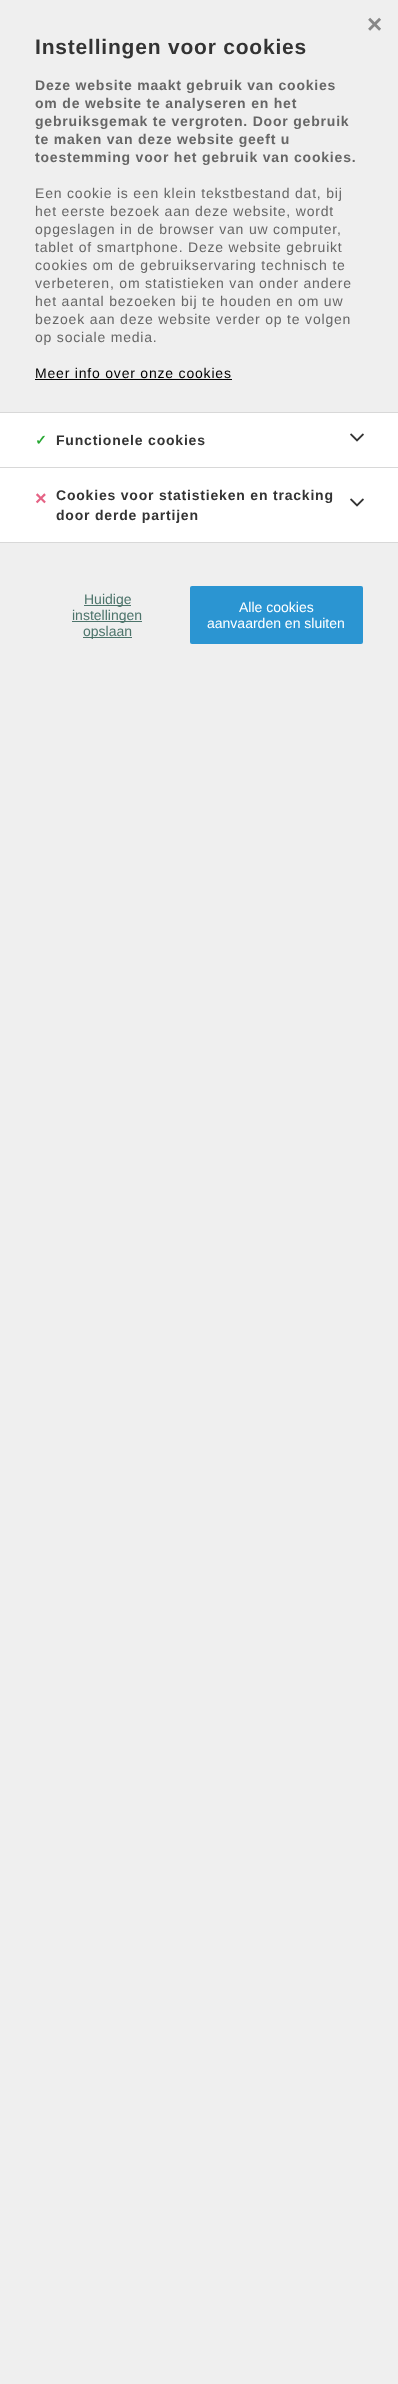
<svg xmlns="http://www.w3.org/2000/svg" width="398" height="2384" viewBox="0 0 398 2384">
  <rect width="100%" height="100%" fill="#efefef"/>
  <path d="M0 412h398v1H0z" fill="#d8d8d8"/>
  <path d="M35 379h197v1H35z" fill="#000"/>
  <path d="M0 413h398v129H0z" fill="#fff"/>
  <path d="M0 467h398v1H0z" fill="#d8d8d8"/>
  <image x="350" y="433" width="14" height="9" href="img/1.png"/>
  <path d="M0 542h398v1H0z" fill="#d8d8d8"/>
  <image x="350" y="498" width="14" height="9" href="img/1.png"/>
  <path d="M84 605h47v1H84z" fill="#4d746b"/>
  <path d="M72 621h70v1H72z" fill="#4d746b"/>
  <path d="M83 637h49v1H83z" fill="#4d746b"/>
  <rect x="190" y="586" width="173" height="58" rx="2" fill="#2b95d2"/>
  <text x="367" y="33" font-family="Liberation Sans" font-size="26" font-weight="bold" letter-spacing="0.8" fill="#888">×</text>
  <text x="35" y="54" font-family="Liberation Sans" font-size="21" font-weight="bold" letter-spacing="0.8" fill="#333">Instellingen voor cookies</text>
  <g font-family="Liberation Sans" font-size="14" font-weight="bold" letter-spacing="0.8" fill="#666">
    <text x="35" y="90">Deze website maakt gebruik van cookies</text>
    <text x="35" y="108">om de website te analyseren en het</text>
    <text x="35" y="126">gebruiksgemak te vergroten. Door gebruik</text>
    <text x="35" y="144">te maken van deze website geeft u</text>
    <text x="35" y="162">toestemming voor het gebruik van cookies.</text>
  </g>
  <g font-family="Liberation Sans" font-size="14" letter-spacing="0.8" fill="#666">
    <text x="35" y="198">Een cookie is een klein tekstbestand dat, bij</text>
    <text x="35" y="216">het eerste bezoek aan deze website, wordt</text>
    <text x="35" y="234">opgeslagen in de browser van uw computer,</text>
    <text x="35" y="252">tablet of smartphone. Deze website gebruikt</text>
    <text x="35" y="270">cookies om de gebruikservaring technisch te</text>
    <text x="35" y="288">verbeteren, om statistieken van onder andere</text>
    <text x="35" y="306">het aantal bezoeken bij te houden en om uw</text>
    <text x="35" y="324">bezoek aan deze website verder op te volgen</text>
    <text x="35" y="342">op sociale media.</text>
  </g>
  <text x="35" y="378" font-family="Liberation Sans" font-size="14" letter-spacing="0.8" fill="#000">Meer info over onze cookies</text>
  <text x="35" y="445" font-family="DejaVu Sans" font-size="14" font-weight="bold" letter-spacing="0.8" fill="#28a834">✓</text>
  <text x="56" y="445" font-family="Liberation Sans" font-size="14" font-weight="bold" letter-spacing="0.8" fill="#333">Functionele cookies</text>
  <text x="35" y="505" font-family="Liberation Sans" font-size="20" font-weight="bold" letter-spacing="0.8" fill="#e56385">×</text>
  <g font-family="Liberation Sans" font-size="14" font-weight="bold" letter-spacing="0.8" fill="#333">
    <text x="56" y="500">Cookies voor statistieken en tracking</text>
    <text x="56" y="520">door derde partijen</text>
  </g>
  <g font-family="Liberation Sans" font-size="14" fill="#4d746b">
    <text x="84" y="604">Huidige</text>
    <text x="72" y="620">instellingen</text>
    <text x="83" y="636">opslaan</text>
  </g>
  <g font-family="Liberation Sans" font-size="14" fill="#fff">
    <text x="239" y="612">Alle cookies</text>
    <text x="207" y="628">aanvaarden en sluiten</text>
  </g>
</svg>
